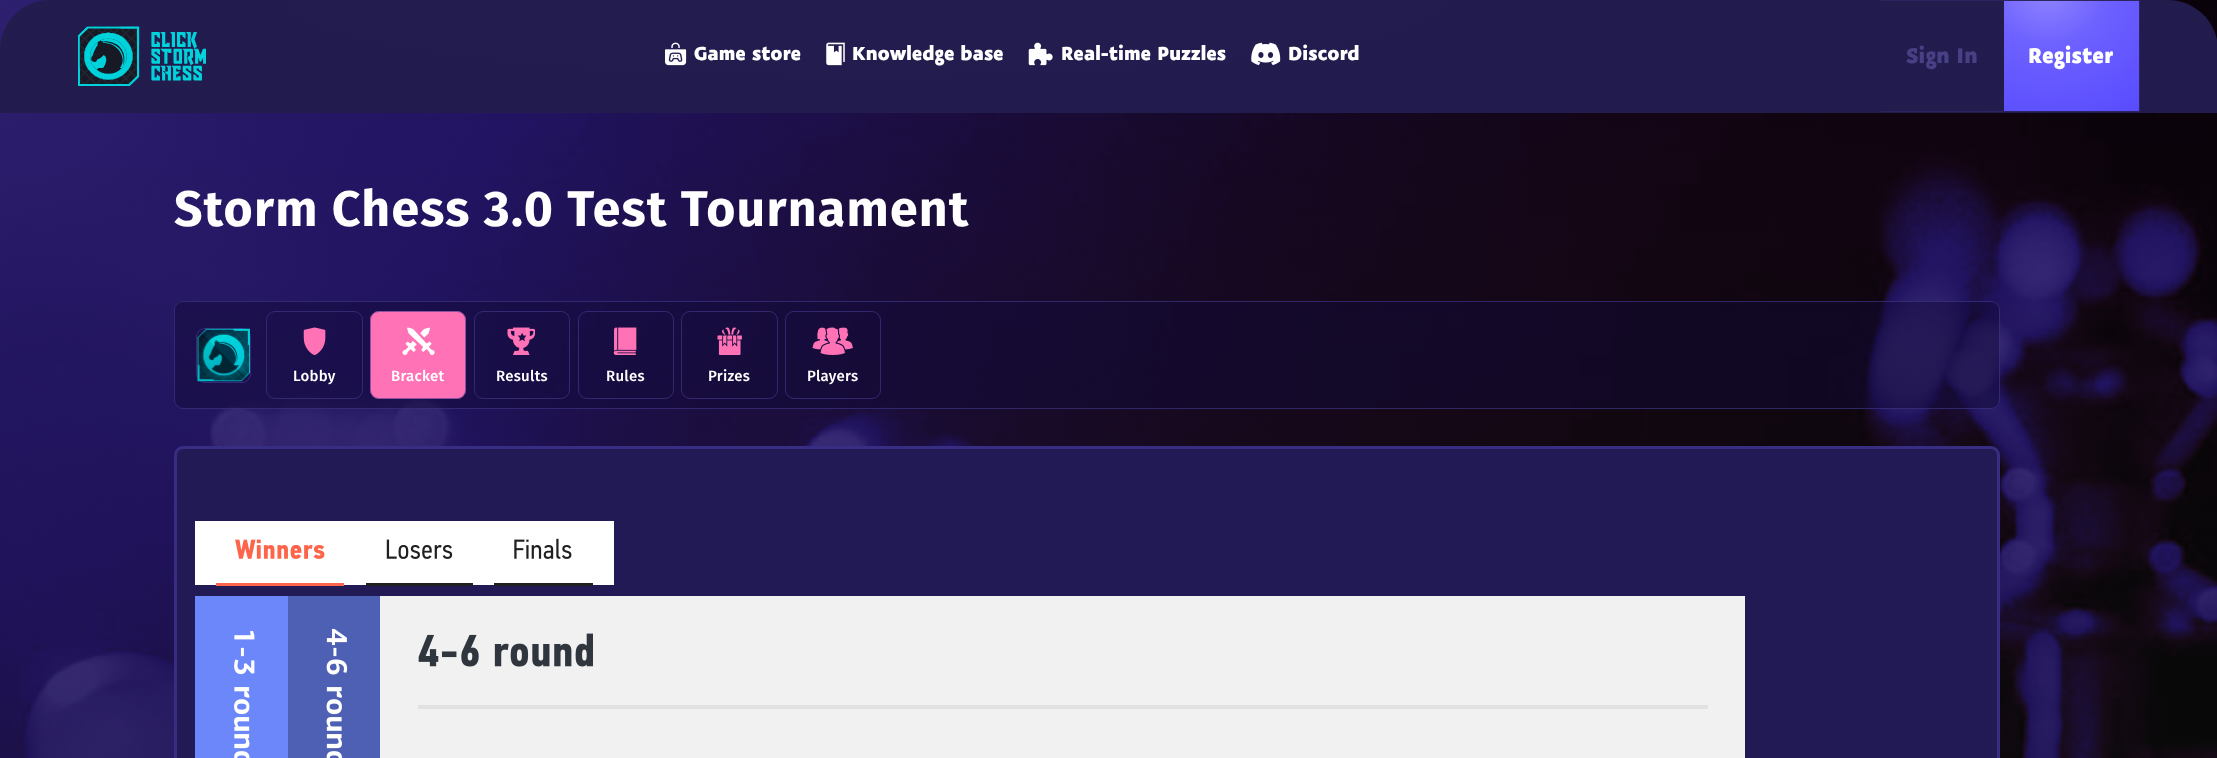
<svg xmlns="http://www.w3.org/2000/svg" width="2217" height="758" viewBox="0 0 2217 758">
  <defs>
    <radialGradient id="g1" gradientUnits="userSpaceOnUse" cx="0" cy="0" r="1" gradientTransform="matrix(7261 0 0 956 863 0)"><stop offset="0" stop-color="#231d4f"/><stop offset="1" stop-color="#1e1948"/></radialGradient>
    <radialGradient id="g2" gradientUnits="userSpaceOnUse" cx="0" cy="0" r="1" gradientTransform="matrix(179 0 0 171 2047 -12)"><stop offset="0" stop-color="#9186ff"/><stop offset="0.34" stop-color="#6d61ff"/><stop offset="0.92" stop-color="#574aff"/></radialGradient>
  </defs>
  <rect width="100%" height="100%" fill="#fff"/>
  <image x="0" y="0" width="2217" height="758" href="img/1.png"/>
  <path d="M50 0H2168C2195.5 0 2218 22.5 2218 50V113H0V50C0 22.5 22.5 0 50 0Z" fill="url(#g1)"/>
  <image x="78" y="26" width="128" height="60" href="img/2.png"/>
  <image x="665" y="42" width="22" height="24" href="img/3.png"/>
  <image x="826" y="42" width="19" height="24" href="img/4.png"/>
  <image x="1028" y="42" width="25" height="24" href="img/5.png"/>
  <image x="1251" y="42" width="30" height="24" href="img/6.png"/>
  <path d="M1881 0H2140L2139 1H1881Z" fill="#2d2562"/>
  <path d="M2140 0V112L2139 111V1Z" fill="#453b914d"/>
  <path d="M2140 112H1881V111H2139Z" fill="#453b914d"/>
  <path d="M2004 1h135v110H2004z" fill="url(#g2)"/>
  <rect x="174" y="301" width="1826" height="108" rx="9" fill="#120a3780"/>
  <rect x="174.5" y="301.5" width="1825" height="107" rx="8.5" fill="none" stroke="#453b9199"/>
  <rect x="196.5" y="328.5" width="54" height="54" rx="8.5" fill="none" stroke="#342a76"/>
  <image x="197" y="328" width="53" height="54" href="img/7.png"/>
  <rect x="266.5" y="311.5" width="96" height="87" rx="8.5" fill="none" stroke="#453b9199"/>
  <image x="303" y="327" width="23" height="28" href="img/8.png"/>
  <rect x="370" y="311" width="96" height="88" rx="9" fill="#ff72b6"/>
  <rect x="370.5" y="311.5" width="95" height="87" rx="8.5" fill="none" stroke="#453b9199"/>
  <image x="402" y="327" width="33" height="28" href="img/9.png"/>
  <rect x="474.5" y="311.5" width="95" height="87" rx="8.5" fill="none" stroke="#453b9199"/>
  <image x="507" y="327" width="28" height="28" href="img/10.png"/>
  <rect x="578.5" y="311.5" width="95" height="87" rx="8.5" fill="none" stroke="#453b9199"/>
  <image x="613" y="327" width="24" height="28" href="img/11.png"/>
  <rect x="681.5" y="311.5" width="96" height="87" rx="8.5" fill="none" stroke="#453b9199"/>
  <image x="717" y="327" width="25" height="28" href="img/12.png"/>
  <rect x="785.5" y="311.5" width="95" height="87" rx="8.5" fill="none" stroke="#453b9199"/>
  <image x="812" y="327" width="41" height="28" href="img/13.png"/>
  <rect x="175.5" y="447.5" width="1823" height="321" rx="7.5" fill="#211a54" stroke="#372d82" stroke-width="3"/>
  <path d="M195 521h419v64H195z" fill="#fff"/>
  <path d="M216 583h128v3H216z" fill="#fd6449"/>
  <image x="235" y="539" width="90" height="20" href="img/14.png"/>
  <path d="M366 583h107v3H366z" fill="#202020"/>
  <image x="386" y="539" width="67" height="20" href="img/15.png"/>
  <path d="M494 583h99v3H494z" fill="#202020"/>
  <image x="514" y="538" width="58" height="21" href="img/16.png"/>
  <path d="M195 596h93v162H195z" fill="#6c87f9"/>
  <image x="234" y="631" width="21" height="127" href="img/17.png"/>
  <path d="M288 596h92v162H288z" fill="#4d60b4"/>
  <image x="326" y="628" width="22" height="130" href="img/18.png"/>
  <path d="M380 596h1365v162H380z" fill="#f1f1f1"/>
  <path d="M418 705h1290v4H418z" fill="#e1e1e1"/>
  <image x="418" y="633" width="175" height="34" href="img/19.png"/>
  <g font-family="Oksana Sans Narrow" font-size="20" font-weight="900" letter-spacing="0.25" fill="#fff">
    <text x="694" y="60">Game store</text>
    <text x="852" y="60">Knowledge base</text>
    <text x="1061" y="60">Real-time Puzzles</text>
    <text x="1288" y="60">Discord</text>
  </g>
  <text x="1906" y="63" font-family="Oksana Sans Narrow" font-size="22.5" font-weight="900" letter-spacing="0.25" fill="#484085">Sign In</text>
  <text x="2028" y="63" font-family="Oksana Sans Narrow" font-size="22.5" font-weight="900" letter-spacing="0.25" fill="#fff">Register</text>
  <text x="174" y="226" font-family="Fira Sans" font-size="50" font-weight="bold" letter-spacing="1.25" fill="#fff">Storm Chess 3.0 Test Tournament</text>
  <g font-family="Fira Sans" font-size="15" font-weight="500" letter-spacing="0.25" fill="#fff">
    <text x="293" y="381">Lobby</text>
    <text x="391" y="381">Bracket</text>
    <text x="496" y="381">Results</text>
    <text x="606" y="381">Rules</text>
    <text x="708" y="381">Prizes</text>
    <text x="807" y="381">Players</text>
  </g>
</svg>
